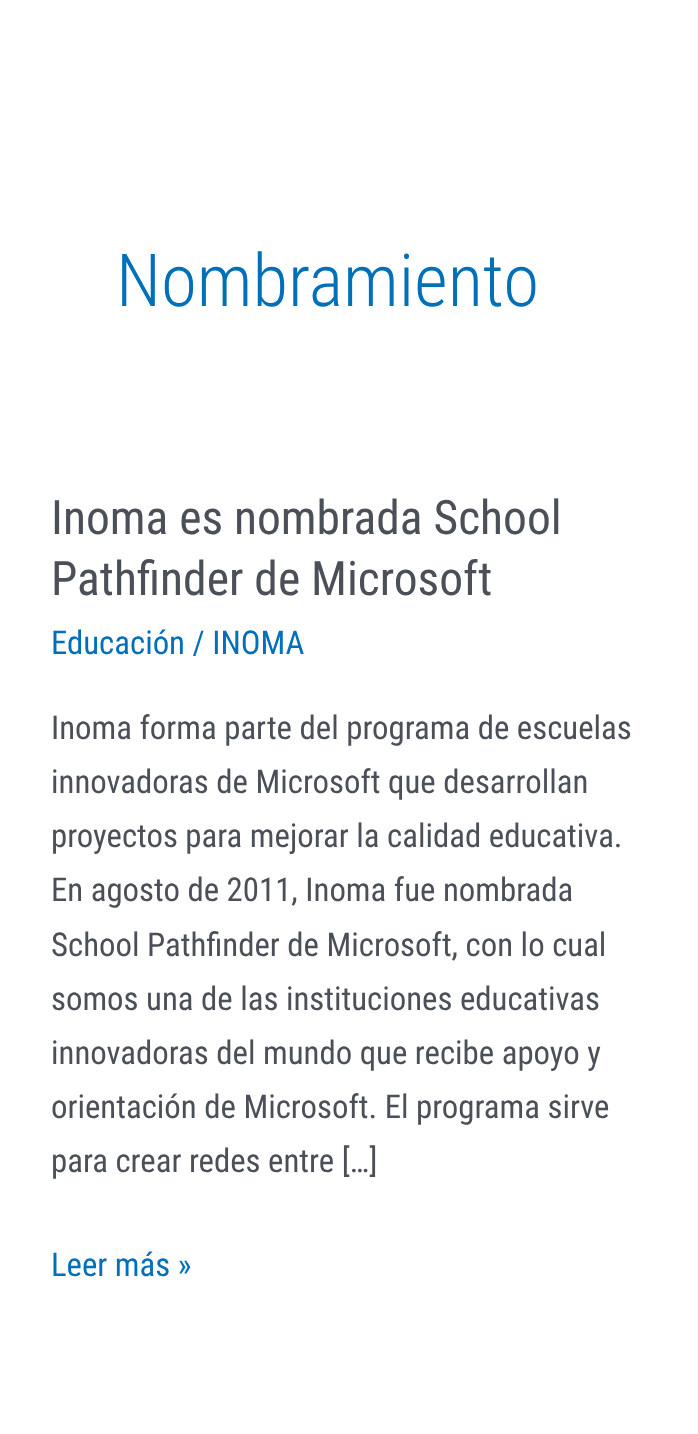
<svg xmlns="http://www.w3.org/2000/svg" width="698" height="1434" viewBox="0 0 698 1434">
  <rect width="100%" height="100%" fill="#fff"/>
  <text x="116" y="306" font-family="Roboto Condensed" font-size="73" font-weight="300" fill="#0170b9">Nombramiento</text>
  <g font-family="Roboto Condensed" font-size="47.5" fill="#4b4f58">
    <text x="51" y="534">Inoma es nombrada School</text>
    <text x="51" y="595">Pathfinder de Microsoft</text>
  </g>
  <text x="51" y="654" font-family="Roboto Condensed" font-size="32.8" fill="#0170b9">Educación / INOMA</text>
  <g font-family="Roboto Condensed" font-size="32.8" fill="#4b4f58">
    <text x="51" y="739">Inoma forma parte del programa de escuelas</text>
    <text x="51" y="793">innovadoras de Microsoft que desarrollan</text>
    <text x="51" y="847">proyectos para mejorar la calidad educativa.</text>
    <text x="51" y="901">En agosto de 2011, Inoma fue nombrada</text>
    <text x="51" y="956">School Pathfinder de Microsoft, con lo cual</text>
    <text x="51" y="1010">somos una de las instituciones educativas</text>
    <text x="51" y="1064">innovadoras del mundo que recibe apoyo y</text>
    <text x="51" y="1118">orientación de Microsoft. El programa sirve</text>
    <text x="51" y="1172">para crear redes entre […]</text>
  </g>
  <text x="51" y="1276" font-family="Roboto Condensed" font-size="32.8" fill="#0170b9">Leer más »</text>
</svg>
